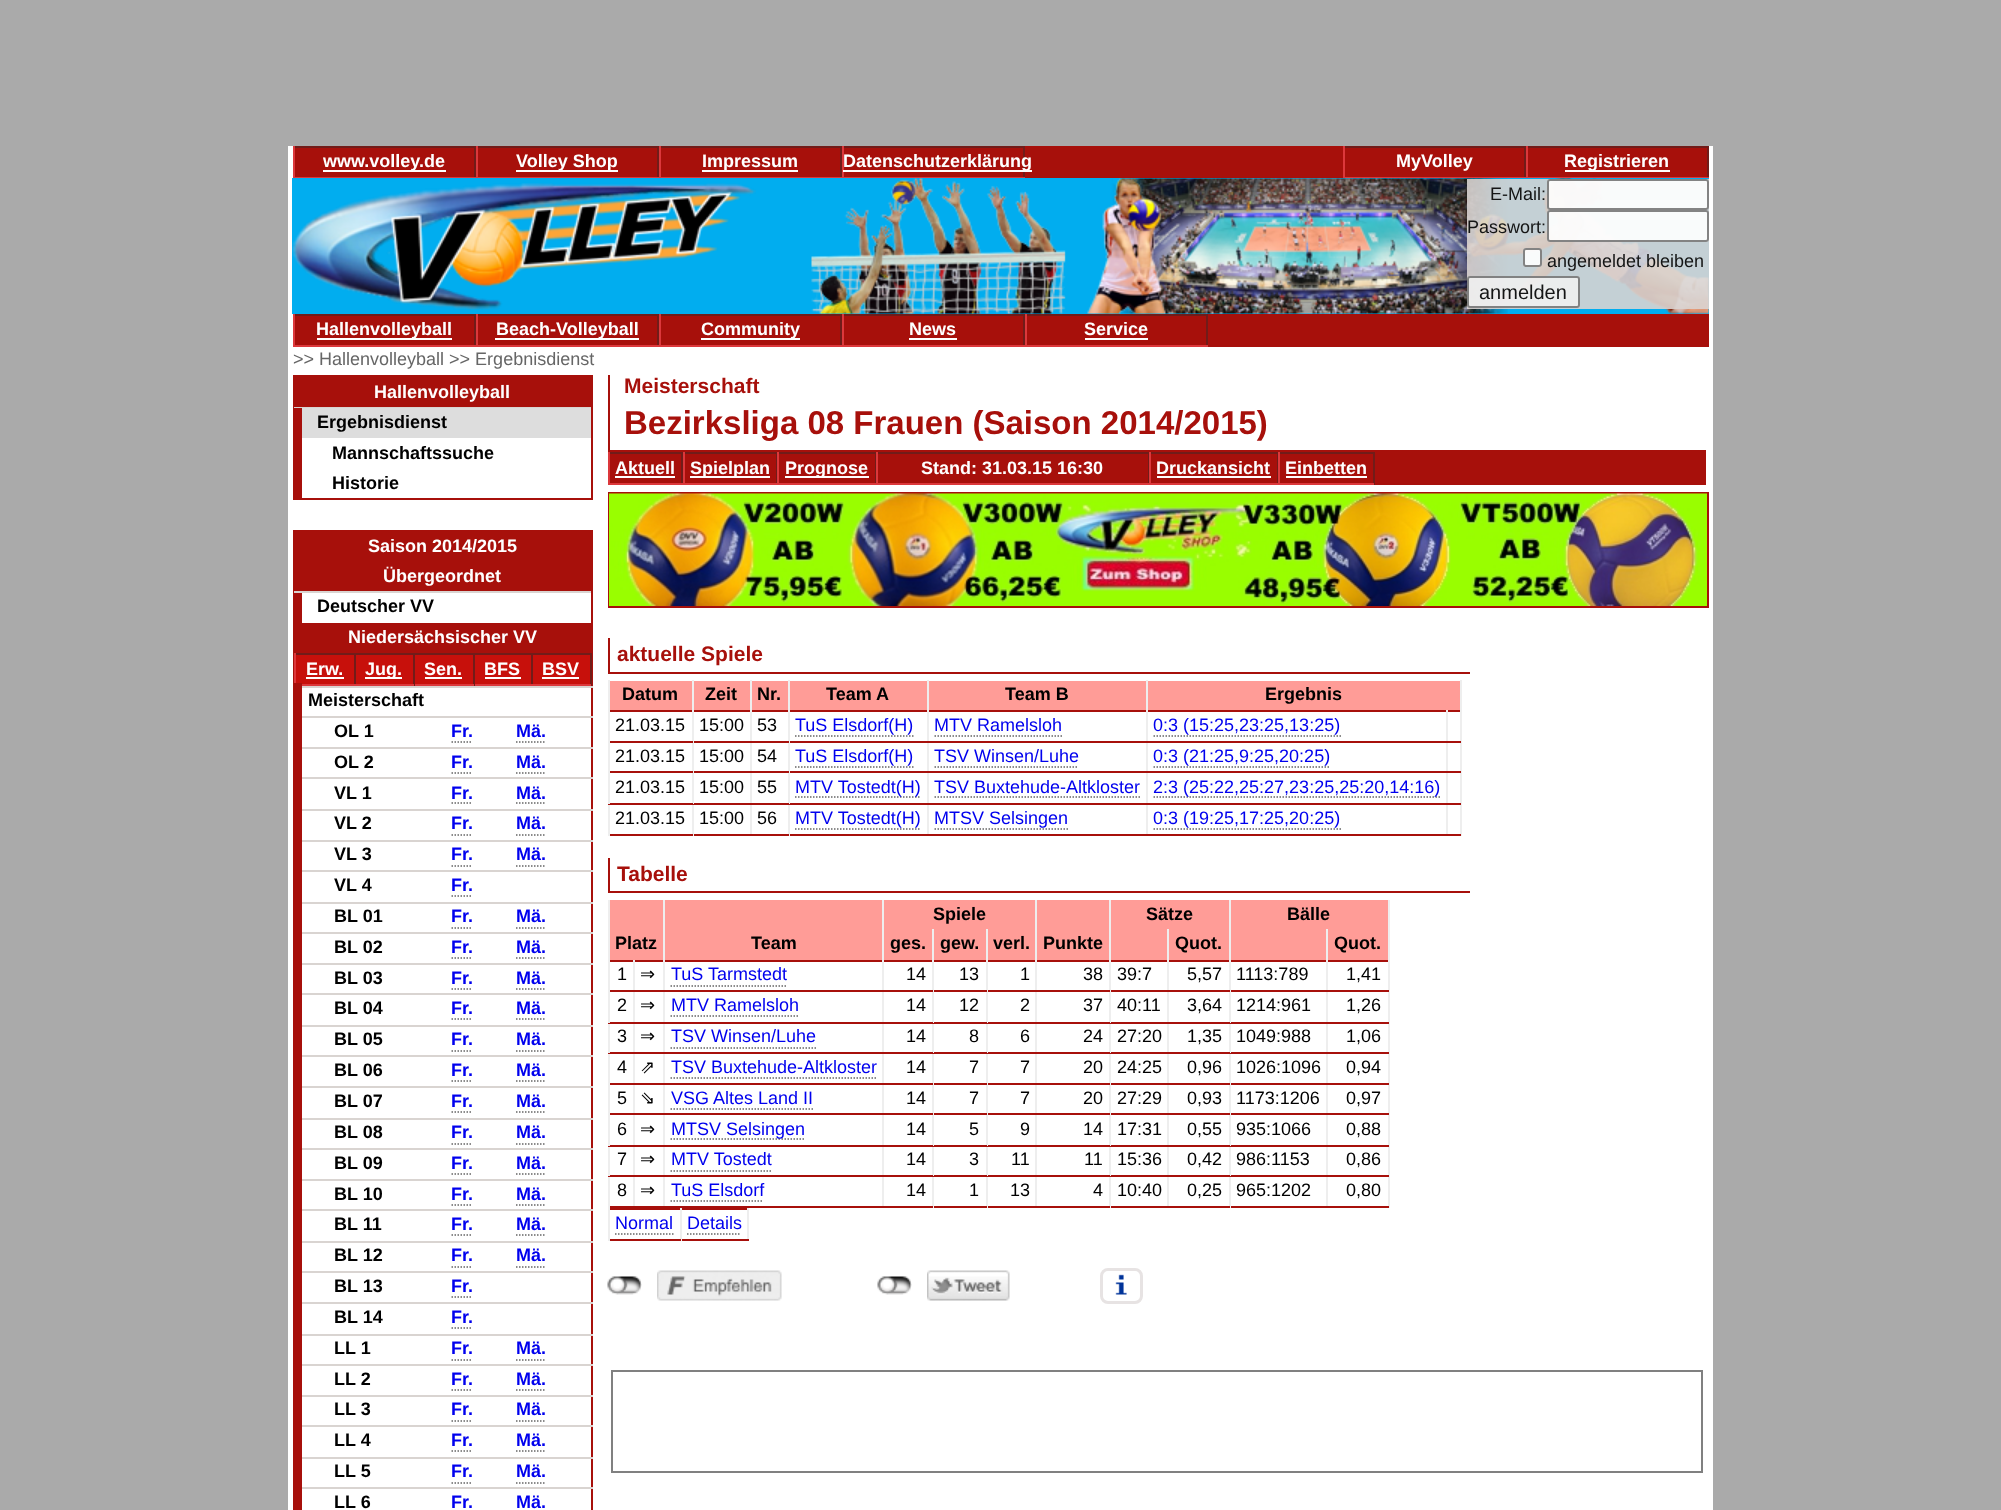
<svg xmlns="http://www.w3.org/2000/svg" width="2001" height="1510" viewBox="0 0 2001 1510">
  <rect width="100%" height="100%" fill="#aaa"/>
  <path d="M288 146h1425v1364H288z" fill="#fff"/>
  <path d="M295 146h1412v32H295z" fill="#a7100b"/>
  <path d="M293 146h732v2H293z" fill="#711c19"/>
  <path d="M474 146h2v33H474z" fill="#711c19"/>
  <path d="M293 177h183v1H293z" fill="#dc383b"/>
  <path d="M293 146h2v33H293z" fill="#dc383b"/>
  <path d="M323 170h123v2H323z" fill="#fff"/>
  <path d="M657 146h2v33H657z" fill="#711c19"/>
  <path d="M476 177h183v1H476z" fill="#dc383b"/>
  <path d="M476 146h2v33H476z" fill="#dc383b"/>
  <path d="M516 170h102v2H516z" fill="#fff"/>
  <path d="M840 146h2v33H840z" fill="#711c19"/>
  <path d="M659 177h183v1H659z" fill="#dc383b"/>
  <path d="M659 146h2v33H659z" fill="#dc383b"/>
  <path d="M702 170h96v2H702z" fill="#fff"/>
  <path d="M1023 146h2v33H1023z" fill="#711c19"/>
  <path d="M842 177h183v1H842z" fill="#dc383b"/>
  <path d="M842 146h2v33H842z" fill="#dc383b"/>
  <path d="M843 170h189v2H843z" fill="#fff"/>
  <path d="M1343 146h366v2H1343z" fill="#711c19"/>
  <path d="M1524 146h2v33H1524z" fill="#711c19"/>
  <path d="M1343 177h183v1H1343z" fill="#dc383b"/>
  <path d="M1343 146h2v33H1343z" fill="#dc383b"/>
  <path d="M1707 146h2v33H1707z" fill="#711c19"/>
  <path d="M1526 177h183v1H1526z" fill="#dc383b"/>
  <path d="M1526 146h2v33H1526z" fill="#dc383b"/>
  <path d="M1565 170h105v2H1565z" fill="#fff"/>
  <path d="M292 178h1417v136H292z" fill="#01adef"/>
  <image x="292" y="183" width="464" height="127" href="img/1.png"/>
  <image x="811" y="178" width="898" height="136" href="img/2.png"/>
  <path d="M1467 179h242v130H1467z" fill="#d9d4d1e6"/>
  <rect x="1547" y="179" width="162" height="31" rx="3" fill="#ffffffe6"/>
  <rect x="1548" y="180" width="160" height="29" rx="2" fill="none" stroke="#767676e6" stroke-width="2"/>
  <rect x="1547" y="210" width="162" height="32" rx="3" fill="#ffffffe6"/>
  <rect x="1548" y="211" width="160" height="30" rx="2" fill="none" stroke="#767676e6" stroke-width="2"/>
  <rect x="1523" y="248" width="19" height="19" rx="3" fill="#ffffffe6"/>
  <rect x="1524" y="249" width="17" height="17" rx="2" fill="none" stroke="#767676e6" stroke-width="2"/>
  <rect x="1467" y="276" width="113" height="32" rx="3" fill="#efefefe6"/>
  <rect x="1468" y="277" width="111" height="30" rx="2" fill="none" stroke="#767676e6" stroke-width="2"/>
  <path d="M295 314h1414v33H295z" fill="#a7100b"/>
  <path d="M293 314h915v2H293z" fill="#711c19"/>
  <path d="M474 314h2v33H474z" fill="#711c19"/>
  <path d="M293 345h183v2H293z" fill="#dc383b"/>
  <path d="M293 314h2v33H293z" fill="#dc383b"/>
  <path d="M317 338h135v2H317z" fill="#fff"/>
  <path d="M657 314h2v33H657z" fill="#711c19"/>
  <path d="M476 345h183v2H476z" fill="#dc383b"/>
  <path d="M476 314h2v33H476z" fill="#dc383b"/>
  <path d="M495 338h144v2H495z" fill="#fff"/>
  <path d="M840 314h2v33H840z" fill="#711c19"/>
  <path d="M659 345h183v2H659z" fill="#dc383b"/>
  <path d="M659 314h2v33H659z" fill="#dc383b"/>
  <path d="M701 338h99v2H701z" fill="#fff"/>
  <path d="M1023 314h2v33H1023z" fill="#711c19"/>
  <path d="M842 345h183v2H842z" fill="#dc383b"/>
  <path d="M842 314h2v33H842z" fill="#dc383b"/>
  <path d="M909 338h48v2H909z" fill="#fff"/>
  <path d="M1206 314h2v33H1206z" fill="#711c19"/>
  <path d="M1025 345h183v2H1025z" fill="#dc383b"/>
  <path d="M1025 314h2v33H1025z" fill="#dc383b"/>
  <path d="M1085 338h63v2H1085z" fill="#fff"/>
  <path d="M294 376h298v123H294z" fill="none" stroke="#a7100b" stroke-width="2"/>
  <path d="M295 377h296v30H295z" fill="#a7100b"/>
  <path d="M294 407h297v1H294z" fill="#d9d4d1"/>
  <path d="M302 408h289v30H302z" fill="#ddd"/>
  <path d="M295 408h7v90H295z" fill="#a7100b"/>
  <path d="M294 531h298v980H294z" fill="none" stroke="#a7100b" stroke-width="2"/>
  <path d="M295 532h296v59H295z" fill="#a7100b"/>
  <path d="M294 591h297v2H294z" fill="#d9d4d1"/>
  <path d="M295 593h7v30H295z" fill="#a7100b"/>
  <path d="M295 623h296v30H295z" fill="#a7100b"/>
  <path d="M296 655h58v29H296z" fill="#c7100b"/>
  <path d="M294 653h297v2H294z" fill="#711c19"/>
  <path d="M590 653h2v33H590z" fill="#711c19"/>
  <path d="M531 684h60v2H531z" fill="#dc383b"/>
  <path d="M531 653h2v33H531z" fill="#711c19"/>
  <path d="M473 684h60v2H473z" fill="#dc383b"/>
  <path d="M473 653h2v33H473z" fill="#711c19"/>
  <path d="M413 684h61v2H413z" fill="#dc383b"/>
  <path d="M413 653h2v33H413z" fill="#711c19"/>
  <path d="M354 684h60v2H354z" fill="#dc383b"/>
  <path d="M354 653h2v33H354z" fill="#711c19"/>
  <path d="M294 684h62v2H294z" fill="#dc383b"/>
  <path d="M294 653h2v33H294z" fill="#dc383b"/>
  <path d="M306 677h38v2H306z" fill="#fff"/>
  <path d="M356 655h57v29H356z" fill="#c7100b"/>
  <path d="M365 677h37v2H365z" fill="#fff"/>
  <path d="M415 655h58v29H415z" fill="#c7100b"/>
  <path d="M425 677h37v2H425z" fill="#fff"/>
  <path d="M475 655h56v29H475z" fill="#c7100b"/>
  <path d="M485 677h36v2H485z" fill="#fff"/>
  <path d="M533 655h57v29H533z" fill="#c7100b"/>
  <path d="M542 677h37v2H542z" fill="#fff"/>
  <path d="M297 686h296v2H297z" fill="#d9d4d1"/>
  <path d="M297 716h296v2H297z" fill="#d9d4d1"/>
  <path d="M297 747h296v2H297z" fill="#d9d4d1"/>
  <path d="M297 777h296v2H297z" fill="#d9d4d1"/>
  <path d="M297 809h296v2H297z" fill="#d9d4d1"/>
  <path d="M297 840h296v2H297z" fill="#d9d4d1"/>
  <path d="M297 870h296v2H297z" fill="#d9d4d1"/>
  <path d="M297 902h296v2H297z" fill="#d9d4d1"/>
  <path d="M297 932h296v2H297z" fill="#d9d4d1"/>
  <path d="M297 963h296v2H297z" fill="#d9d4d1"/>
  <path d="M297 993h296v2H297z" fill="#d9d4d1"/>
  <path d="M297 1025h296v2H297z" fill="#d9d4d1"/>
  <path d="M297 1055h296v2H297z" fill="#d9d4d1"/>
  <path d="M297 1086h296v2H297z" fill="#d9d4d1"/>
  <path d="M297 1118h296v2H297z" fill="#d9d4d1"/>
  <path d="M297 1148h296v2H297z" fill="#d9d4d1"/>
  <path d="M297 1179h296v2H297z" fill="#d9d4d1"/>
  <path d="M297 1209h296v2H297z" fill="#d9d4d1"/>
  <path d="M297 1241h296v2H297z" fill="#d9d4d1"/>
  <path d="M297 1271h296v2H297z" fill="#d9d4d1"/>
  <path d="M297 1302h296v2H297z" fill="#d9d4d1"/>
  <path d="M297 1334h296v2H297z" fill="#d9d4d1"/>
  <path d="M297 1364h296v2H297z" fill="#d9d4d1"/>
  <path d="M297 1395h296v2H297z" fill="#d9d4d1"/>
  <path d="M297 1425h296v2H297z" fill="#d9d4d1"/>
  <path d="M297 1457h296v2H297z" fill="#d9d4d1"/>
  <path d="M297 1487h296v2H297z" fill="#d9d4d1"/>
  <path d="M295 713h7v797H295z" fill="#a7100b"/>
  <path d="M294 683h8v37H294z" fill="#a7100b"/>
  <path d="M451.5 742H472.5" fill="none" stroke="#666" stroke-width="1.5" stroke-dasharray="1.5 1.5"/>
  <path d="M516 742H546" fill="none" stroke="#666" stroke-width="1.5" stroke-dasharray="1.5 1.5"/>
  <path d="M451.5 773H472.5" fill="none" stroke="#666" stroke-width="1.5" stroke-dasharray="1.5 1.5"/>
  <path d="M516 773H546" fill="none" stroke="#666" stroke-width="1.5" stroke-dasharray="1.5 1.5"/>
  <path d="M451.5 803H472.5" fill="none" stroke="#666" stroke-width="1.5" stroke-dasharray="1.5 1.5"/>
  <path d="M516 803H546" fill="none" stroke="#666" stroke-width="1.5" stroke-dasharray="1.5 1.5"/>
  <path d="M451.5 835H472.5" fill="none" stroke="#666" stroke-width="1.5" stroke-dasharray="1.5 1.5"/>
  <path d="M516 835H546" fill="none" stroke="#666" stroke-width="1.5" stroke-dasharray="1.5 1.5"/>
  <path d="M451.5 866H472.5" fill="none" stroke="#666" stroke-width="1.5" stroke-dasharray="1.5 1.5"/>
  <path d="M516 866H546" fill="none" stroke="#666" stroke-width="1.5" stroke-dasharray="1.5 1.5"/>
  <path d="M451.5 896H472.5" fill="none" stroke="#666" stroke-width="1.5" stroke-dasharray="1.5 1.5"/>
  <path d="M451.5 928H472.5" fill="none" stroke="#666" stroke-width="1.5" stroke-dasharray="1.5 1.5"/>
  <path d="M516 928H546" fill="none" stroke="#666" stroke-width="1.5" stroke-dasharray="1.5 1.5"/>
  <path d="M451.5 958H472.5" fill="none" stroke="#666" stroke-width="1.5" stroke-dasharray="1.5 1.5"/>
  <path d="M516 958H546" fill="none" stroke="#666" stroke-width="1.5" stroke-dasharray="1.5 1.5"/>
  <path d="M451.5 989H472.5" fill="none" stroke="#666" stroke-width="1.5" stroke-dasharray="1.5 1.5"/>
  <path d="M516 989H546" fill="none" stroke="#666" stroke-width="1.5" stroke-dasharray="1.5 1.5"/>
  <path d="M451.5 1019H472.5" fill="none" stroke="#666" stroke-width="1.5" stroke-dasharray="1.5 1.5"/>
  <path d="M516 1019H546" fill="none" stroke="#666" stroke-width="1.5" stroke-dasharray="1.5 1.5"/>
  <path d="M451.5 1051H472.5" fill="none" stroke="#666" stroke-width="1.5" stroke-dasharray="1.5 1.5"/>
  <path d="M516 1051H546" fill="none" stroke="#666" stroke-width="1.5" stroke-dasharray="1.5 1.5"/>
  <path d="M451.5 1081H472.5" fill="none" stroke="#666" stroke-width="1.5" stroke-dasharray="1.5 1.5"/>
  <path d="M516 1081H546" fill="none" stroke="#666" stroke-width="1.5" stroke-dasharray="1.5 1.5"/>
  <path d="M451.5 1112H472.5" fill="none" stroke="#666" stroke-width="1.5" stroke-dasharray="1.5 1.5"/>
  <path d="M516 1112H546" fill="none" stroke="#666" stroke-width="1.5" stroke-dasharray="1.5 1.5"/>
  <path d="M451.5 1144H472.5" fill="none" stroke="#666" stroke-width="1.5" stroke-dasharray="1.5 1.5"/>
  <path d="M516 1144H546" fill="none" stroke="#666" stroke-width="1.5" stroke-dasharray="1.5 1.5"/>
  <path d="M451.5 1174H472.5" fill="none" stroke="#666" stroke-width="1.5" stroke-dasharray="1.5 1.5"/>
  <path d="M516 1174H546" fill="none" stroke="#666" stroke-width="1.5" stroke-dasharray="1.5 1.5"/>
  <path d="M451.5 1205H472.5" fill="none" stroke="#666" stroke-width="1.5" stroke-dasharray="1.5 1.5"/>
  <path d="M516 1205H546" fill="none" stroke="#666" stroke-width="1.5" stroke-dasharray="1.5 1.5"/>
  <path d="M451.5 1235H472.5" fill="none" stroke="#666" stroke-width="1.5" stroke-dasharray="1.5 1.5"/>
  <path d="M516 1235H546" fill="none" stroke="#666" stroke-width="1.5" stroke-dasharray="1.5 1.5"/>
  <path d="M451.5 1267H472.5" fill="none" stroke="#666" stroke-width="1.5" stroke-dasharray="1.5 1.5"/>
  <path d="M516 1267H546" fill="none" stroke="#666" stroke-width="1.5" stroke-dasharray="1.5 1.5"/>
  <path d="M451.5 1297H472.5" fill="none" stroke="#666" stroke-width="1.5" stroke-dasharray="1.5 1.5"/>
  <path d="M451.5 1328H472.5" fill="none" stroke="#666" stroke-width="1.5" stroke-dasharray="1.5 1.5"/>
  <path d="M451.5 1360H472.5" fill="none" stroke="#666" stroke-width="1.5" stroke-dasharray="1.5 1.5"/>
  <path d="M516 1360H546" fill="none" stroke="#666" stroke-width="1.5" stroke-dasharray="1.5 1.5"/>
  <path d="M451.5 1390H472.5" fill="none" stroke="#666" stroke-width="1.5" stroke-dasharray="1.5 1.5"/>
  <path d="M516 1390H546" fill="none" stroke="#666" stroke-width="1.5" stroke-dasharray="1.5 1.5"/>
  <path d="M451.5 1421H472.5" fill="none" stroke="#666" stroke-width="1.5" stroke-dasharray="1.5 1.5"/>
  <path d="M516 1421H546" fill="none" stroke="#666" stroke-width="1.5" stroke-dasharray="1.5 1.5"/>
  <path d="M451.5 1451H472.5" fill="none" stroke="#666" stroke-width="1.5" stroke-dasharray="1.5 1.5"/>
  <path d="M516 1451H546" fill="none" stroke="#666" stroke-width="1.5" stroke-dasharray="1.5 1.5"/>
  <path d="M451.5 1483H472.5" fill="none" stroke="#666" stroke-width="1.5" stroke-dasharray="1.5 1.5"/>
  <path d="M516 1483H546" fill="none" stroke="#666" stroke-width="1.5" stroke-dasharray="1.5 1.5"/>
  <path d="M608 450h1098v2H608z" fill="#a7100b"/>
  <path d="M608 375h2v77H608z" fill="#a7100b"/>
  <path d="M610 452h1096v33H610z" fill="#a7100b"/>
  <path d="M608 452h766v2H608z" fill="#711c19"/>
  <path d="M681 452h2v33H681z" fill="#711c19"/>
  <path d="M608 483h75v2H608z" fill="#dc383b"/>
  <path d="M608 452h2v33H608z" fill="#dc383b"/>
  <path d="M615 476h60v2H615z" fill="#fff"/>
  <path d="M776 452h1v33H776z" fill="#711c19"/>
  <path d="M683 483h94v2H683z" fill="#dc383b"/>
  <path d="M683 452h2v33H683z" fill="#dc383b"/>
  <path d="M690 476h80v2H690z" fill="#fff"/>
  <path d="M875 452h1v33H875z" fill="#711c19"/>
  <path d="M777 483h99v2H777z" fill="#dc383b"/>
  <path d="M777 452h2v33H777z" fill="#dc383b"/>
  <path d="M785 476h84v2H785z" fill="#fff"/>
  <path d="M1148 452h1v33H1148z" fill="#711c19"/>
  <path d="M876 483h273v2H876z" fill="#dc383b"/>
  <path d="M876 452h2v33H876z" fill="#dc383b"/>
  <path d="M1277 452h1v33H1277z" fill="#711c19"/>
  <path d="M1149 483h129v2H1149z" fill="#dc383b"/>
  <path d="M1149 452h2v33H1149z" fill="#dc383b"/>
  <path d="M1157 476h114v2H1157z" fill="#fff"/>
  <path d="M1373 452h2v33H1373z" fill="#711c19"/>
  <path d="M1278 483h96v2H1278z" fill="#dc383b"/>
  <path d="M1278 452h2v33H1278z" fill="#dc383b"/>
  <path d="M1286 476h81v2H1286z" fill="#fff"/>
  <path d="M609 493h1099v114H609z" fill="none" stroke="#a7100b" stroke-width="2"/>
  <image x="609" y="493" width="1098" height="113" href="img/3.png"/>
  <path d="M608 672h862v2H608z" fill="#a7100b"/>
  <path d="M608 638h2v36H608z" fill="#a7100b"/>
  <path d="M610 681h82v29H610z" fill="#ff9c97"/>
  <path d="M694 681h56v29H694z" fill="#ff9c97"/>
  <path d="M752 681h36v29H752z" fill="#ff9c97"/>
  <path d="M790 681h137v29H790z" fill="#ff9c97"/>
  <path d="M929 681h217v29H929z" fill="#ff9c97"/>
  <path d="M1148 681h312v29H1148z" fill="#ff9c97"/>
  <path d="M608 710h853v2H608z" fill="#a7100b"/>
  <path d="M1460 741h2v95H1460z" fill="#eee"/>
  <path d="M1460 680h2v63H1460z" fill="#eee"/>
  <path d="M1446 834h15v2H1446z" fill="#a7100b"/>
  <path d="M1446 803h2v33H1446z" fill="#eee"/>
  <path d="M1446 803h15v2H1446z" fill="#a7100b"/>
  <path d="M1446 771h2v33H1446z" fill="#eee"/>
  <path d="M1446 771h15v2H1446z" fill="#a7100b"/>
  <path d="M1446 741h2v32H1446z" fill="#eee"/>
  <path d="M1446 741h15v2H1446z" fill="#a7100b"/>
  <path d="M1446 710h2v33H1446z" fill="#eee"/>
  <path d="M1146 834h302v2H1146z" fill="#a7100b"/>
  <path d="M1146 803h2v33H1146z" fill="#eee"/>
  <path d="M1146 803h302v2H1146z" fill="#a7100b"/>
  <path d="M1146 771h2v33H1146z" fill="#eee"/>
  <path d="M1146 771h302v2H1146z" fill="#a7100b"/>
  <path d="M1146 741h2v32H1146z" fill="#eee"/>
  <path d="M1146 741h302v2H1146z" fill="#a7100b"/>
  <path d="M1146 680h2v63H1146z" fill="#eee"/>
  <path d="M927 834h221v2H927z" fill="#a7100b"/>
  <path d="M927 803h2v33H927z" fill="#eee"/>
  <path d="M927 803h221v2H927z" fill="#a7100b"/>
  <path d="M927 771h2v33H927z" fill="#eee"/>
  <path d="M927 771h221v2H927z" fill="#a7100b"/>
  <path d="M927 741h2v32H927z" fill="#eee"/>
  <path d="M927 741h221v2H927z" fill="#a7100b"/>
  <path d="M927 680h2v63H927z" fill="#eee"/>
  <path d="M788 834h141v2H788z" fill="#a7100b"/>
  <path d="M788 803h2v33H788z" fill="#eee"/>
  <path d="M788 803h141v2H788z" fill="#a7100b"/>
  <path d="M788 771h2v33H788z" fill="#eee"/>
  <path d="M788 771h141v2H788z" fill="#a7100b"/>
  <path d="M788 741h2v32H788z" fill="#eee"/>
  <path d="M788 741h141v2H788z" fill="#a7100b"/>
  <path d="M788 680h2v63H788z" fill="#eee"/>
  <path d="M750 834h39v2H750z" fill="#a7100b"/>
  <path d="M750 803h2v33H750z" fill="#eee"/>
  <path d="M750 803h39v2H750z" fill="#a7100b"/>
  <path d="M750 771h2v33H750z" fill="#eee"/>
  <path d="M750 771h39v2H750z" fill="#a7100b"/>
  <path d="M750 741h2v32H750z" fill="#eee"/>
  <path d="M750 741h39v2H750z" fill="#a7100b"/>
  <path d="M750 680h2v63H750z" fill="#eee"/>
  <path d="M692 834h60v2H692z" fill="#a7100b"/>
  <path d="M692 803h2v33H692z" fill="#eee"/>
  <path d="M692 803h60v2H692z" fill="#a7100b"/>
  <path d="M692 771h2v33H692z" fill="#eee"/>
  <path d="M692 771h60v2H692z" fill="#a7100b"/>
  <path d="M692 741h2v32H692z" fill="#eee"/>
  <path d="M692 741h60v2H692z" fill="#a7100b"/>
  <path d="M692 680h2v63H692z" fill="#eee"/>
  <path d="M608 834h85v2H608z" fill="#a7100b"/>
  <path d="M608 803h2v33H608z" fill="#eee"/>
  <path d="M608 803h85v2H608z" fill="#a7100b"/>
  <path d="M608 771h2v33H608z" fill="#eee"/>
  <path d="M608 771h85v2H608z" fill="#a7100b"/>
  <path d="M608 741h2v32H608z" fill="#eee"/>
  <path d="M608 741h85v2H608z" fill="#a7100b"/>
  <path d="M608 680h2v63H608z" fill="#eee"/>
  <path d="M795 736H913.5" fill="none" stroke="#666" stroke-width="1.5" stroke-dasharray="1.5 1.5"/>
  <path d="M934.5 736H1062" fill="none" stroke="#666" stroke-width="1.5" stroke-dasharray="1.5 1.5"/>
  <path d="M1153.5 736H1341" fill="none" stroke="#666" stroke-width="1.5" stroke-dasharray="1.5 1.5"/>
  <path d="M795 767H913.5" fill="none" stroke="#666" stroke-width="1.5" stroke-dasharray="1.5 1.5"/>
  <path d="M934.5 767H1078.5" fill="none" stroke="#666" stroke-width="1.5" stroke-dasharray="1.5 1.5"/>
  <path d="M1153.5 767H1330.5" fill="none" stroke="#666" stroke-width="1.5" stroke-dasharray="1.5 1.5"/>
  <path d="M795 797H921" fill="none" stroke="#666" stroke-width="1.5" stroke-dasharray="1.5 1.5"/>
  <path d="M934.5 797H1140" fill="none" stroke="#666" stroke-width="1.5" stroke-dasharray="1.5 1.5"/>
  <path d="M1153.5 797H1440" fill="none" stroke="#666" stroke-width="1.5" stroke-dasharray="1.5 1.5"/>
  <path d="M795 829H921" fill="none" stroke="#666" stroke-width="1.5" stroke-dasharray="1.5 1.5"/>
  <path d="M934.5 829H1068" fill="none" stroke="#666" stroke-width="1.5" stroke-dasharray="1.5 1.5"/>
  <path d="M1153.5 829H1341" fill="none" stroke="#666" stroke-width="1.5" stroke-dasharray="1.5 1.5"/>
  <path d="M608 891h862v2H608z" fill="#a7100b"/>
  <path d="M608 858h2v35H608z" fill="#a7100b"/>
  <path d="M610 900h53v60H610z" fill="#ff9c97"/>
  <path d="M665 900h217v60H665z" fill="#ff9c97"/>
  <path d="M884 900h151v30H884z" fill="#ff9c97"/>
  <path d="M1037 900h72v60H1037z" fill="#ff9c97"/>
  <path d="M1111 900h118v30H1111z" fill="#ff9c97"/>
  <path d="M1231 900h157v30H1231z" fill="#ff9c97"/>
  <path d="M884 930h48v30H884z" fill="#ff9c97"/>
  <path d="M934 930h52v30H934z" fill="#ff9c97"/>
  <path d="M988 930h47v30H988z" fill="#ff9c97"/>
  <path d="M1111 930h56v30H1111z" fill="#ff9c97"/>
  <path d="M1169 930h60v30H1169z" fill="#ff9c97"/>
  <path d="M1231 930h95v30H1231z" fill="#ff9c97"/>
  <path d="M1328 930h60v30H1328z" fill="#ff9c97"/>
  <path d="M608 960h781v2H608z" fill="#a7100b"/>
  <path d="M1388 990h2v218H1388z" fill="#eee"/>
  <path d="M1388 900h2v92H1388z" fill="#eee"/>
  <path d="M1326 1206h63v2H1326z" fill="#a7100b"/>
  <path d="M1326 1175h2v33H1326z" fill="#eee"/>
  <path d="M1326 1175h63v2H1326z" fill="#a7100b"/>
  <path d="M1326 1145h2v31H1326z" fill="#eee"/>
  <path d="M1326 1145h63v2H1326z" fill="#a7100b"/>
  <path d="M1326 1113h2v33H1326z" fill="#eee"/>
  <path d="M1326 1113h63v2H1326z" fill="#a7100b"/>
  <path d="M1326 1083h2v32H1326z" fill="#eee"/>
  <path d="M1326 1083h63v2H1326z" fill="#a7100b"/>
  <path d="M1326 1052h2v33H1326z" fill="#eee"/>
  <path d="M1326 1052h63v2H1326z" fill="#a7100b"/>
  <path d="M1326 1022h2v31H1326z" fill="#eee"/>
  <path d="M1326 1022h63v2H1326z" fill="#a7100b"/>
  <path d="M1326 990h2v33H1326z" fill="#eee"/>
  <path d="M1326 990h63v2H1326z" fill="#a7100b"/>
  <path d="M1326 929h2v63H1326z" fill="#eee"/>
  <path d="M1229 1206h99v2H1229z" fill="#a7100b"/>
  <path d="M1229 1175h2v33H1229z" fill="#eee"/>
  <path d="M1229 1175h99v2H1229z" fill="#a7100b"/>
  <path d="M1229 1145h2v31H1229z" fill="#eee"/>
  <path d="M1229 1145h99v2H1229z" fill="#a7100b"/>
  <path d="M1229 1113h2v33H1229z" fill="#eee"/>
  <path d="M1229 1113h99v2H1229z" fill="#a7100b"/>
  <path d="M1229 1083h2v32H1229z" fill="#eee"/>
  <path d="M1229 1083h99v2H1229z" fill="#a7100b"/>
  <path d="M1229 1052h2v33H1229z" fill="#eee"/>
  <path d="M1229 1052h99v2H1229z" fill="#a7100b"/>
  <path d="M1229 1022h2v31H1229z" fill="#eee"/>
  <path d="M1229 1022h99v2H1229z" fill="#a7100b"/>
  <path d="M1229 990h2v33H1229z" fill="#eee"/>
  <path d="M1229 990h99v2H1229z" fill="#a7100b"/>
  <path d="M1229 900h2v92H1229z" fill="#eee"/>
  <path d="M1167 1206h63v2H1167z" fill="#a7100b"/>
  <path d="M1167 1175h2v33H1167z" fill="#eee"/>
  <path d="M1167 1175h63v2H1167z" fill="#a7100b"/>
  <path d="M1167 1145h2v31H1167z" fill="#eee"/>
  <path d="M1167 1145h63v2H1167z" fill="#a7100b"/>
  <path d="M1167 1113h2v33H1167z" fill="#eee"/>
  <path d="M1167 1113h63v2H1167z" fill="#a7100b"/>
  <path d="M1167 1083h2v32H1167z" fill="#eee"/>
  <path d="M1167 1083h63v2H1167z" fill="#a7100b"/>
  <path d="M1167 1052h2v33H1167z" fill="#eee"/>
  <path d="M1167 1052h63v2H1167z" fill="#a7100b"/>
  <path d="M1167 1022h2v31H1167z" fill="#eee"/>
  <path d="M1167 1022h63v2H1167z" fill="#a7100b"/>
  <path d="M1167 990h2v33H1167z" fill="#eee"/>
  <path d="M1167 990h63v2H1167z" fill="#a7100b"/>
  <path d="M1167 929h2v63H1167z" fill="#eee"/>
  <path d="M1109 1206h60v2H1109z" fill="#a7100b"/>
  <path d="M1109 1175h2v33H1109z" fill="#eee"/>
  <path d="M1109 1175h60v2H1109z" fill="#a7100b"/>
  <path d="M1109 1145h2v31H1109z" fill="#eee"/>
  <path d="M1109 1145h60v2H1109z" fill="#a7100b"/>
  <path d="M1109 1113h2v33H1109z" fill="#eee"/>
  <path d="M1109 1113h60v2H1109z" fill="#a7100b"/>
  <path d="M1109 1083h2v32H1109z" fill="#eee"/>
  <path d="M1109 1083h60v2H1109z" fill="#a7100b"/>
  <path d="M1109 1052h2v33H1109z" fill="#eee"/>
  <path d="M1109 1052h60v2H1109z" fill="#a7100b"/>
  <path d="M1109 1022h2v31H1109z" fill="#eee"/>
  <path d="M1109 1022h60v2H1109z" fill="#a7100b"/>
  <path d="M1109 990h2v33H1109z" fill="#eee"/>
  <path d="M1109 990h60v2H1109z" fill="#a7100b"/>
  <path d="M1109 900h2v92H1109z" fill="#eee"/>
  <path d="M1035 1206h75v2H1035z" fill="#a7100b"/>
  <path d="M1035 1175h2v33H1035z" fill="#eee"/>
  <path d="M1035 1175h75v2H1035z" fill="#a7100b"/>
  <path d="M1035 1145h2v31H1035z" fill="#eee"/>
  <path d="M1035 1145h75v2H1035z" fill="#a7100b"/>
  <path d="M1035 1113h2v33H1035z" fill="#eee"/>
  <path d="M1035 1113h75v2H1035z" fill="#a7100b"/>
  <path d="M1035 1083h2v32H1035z" fill="#eee"/>
  <path d="M1035 1083h75v2H1035z" fill="#a7100b"/>
  <path d="M1035 1052h2v33H1035z" fill="#eee"/>
  <path d="M1035 1052h75v2H1035z" fill="#a7100b"/>
  <path d="M1035 1022h2v31H1035z" fill="#eee"/>
  <path d="M1035 1022h75v2H1035z" fill="#a7100b"/>
  <path d="M1035 990h2v33H1035z" fill="#eee"/>
  <path d="M1035 990h75v2H1035z" fill="#a7100b"/>
  <path d="M1035 900h2v92H1035z" fill="#eee"/>
  <path d="M986 1206h51v2H986z" fill="#a7100b"/>
  <path d="M986 1175h2v33H986z" fill="#eee"/>
  <path d="M986 1175h51v2H986z" fill="#a7100b"/>
  <path d="M986 1145h2v31H986z" fill="#eee"/>
  <path d="M986 1145h51v2H986z" fill="#a7100b"/>
  <path d="M986 1113h2v33H986z" fill="#eee"/>
  <path d="M986 1113h51v2H986z" fill="#a7100b"/>
  <path d="M986 1083h2v32H986z" fill="#eee"/>
  <path d="M986 1083h51v2H986z" fill="#a7100b"/>
  <path d="M986 1052h2v33H986z" fill="#eee"/>
  <path d="M986 1052h51v2H986z" fill="#a7100b"/>
  <path d="M986 1022h2v31H986z" fill="#eee"/>
  <path d="M986 1022h51v2H986z" fill="#a7100b"/>
  <path d="M986 990h2v33H986z" fill="#eee"/>
  <path d="M986 990h51v2H986z" fill="#a7100b"/>
  <path d="M986 929h2v63H986z" fill="#eee"/>
  <path d="M932 1206h55v2H932z" fill="#a7100b"/>
  <path d="M932 1175h2v33H932z" fill="#eee"/>
  <path d="M932 1175h55v2H932z" fill="#a7100b"/>
  <path d="M932 1145h2v31H932z" fill="#eee"/>
  <path d="M932 1145h55v2H932z" fill="#a7100b"/>
  <path d="M932 1113h2v33H932z" fill="#eee"/>
  <path d="M932 1113h55v2H932z" fill="#a7100b"/>
  <path d="M932 1083h2v32H932z" fill="#eee"/>
  <path d="M932 1083h55v2H932z" fill="#a7100b"/>
  <path d="M932 1052h2v33H932z" fill="#eee"/>
  <path d="M932 1052h55v2H932z" fill="#a7100b"/>
  <path d="M932 1022h2v31H932z" fill="#eee"/>
  <path d="M932 1022h55v2H932z" fill="#a7100b"/>
  <path d="M932 990h2v33H932z" fill="#eee"/>
  <path d="M932 990h55v2H932z" fill="#a7100b"/>
  <path d="M932 929h2v63H932z" fill="#eee"/>
  <path d="M882 1206h51v2H882z" fill="#a7100b"/>
  <path d="M882 1175h2v33H882z" fill="#eee"/>
  <path d="M882 1175h51v2H882z" fill="#a7100b"/>
  <path d="M882 1145h2v31H882z" fill="#eee"/>
  <path d="M882 1145h51v2H882z" fill="#a7100b"/>
  <path d="M882 1113h2v33H882z" fill="#eee"/>
  <path d="M882 1113h51v2H882z" fill="#a7100b"/>
  <path d="M882 1083h2v32H882z" fill="#eee"/>
  <path d="M882 1083h51v2H882z" fill="#a7100b"/>
  <path d="M882 1052h2v33H882z" fill="#eee"/>
  <path d="M882 1052h51v2H882z" fill="#a7100b"/>
  <path d="M882 1022h2v31H882z" fill="#eee"/>
  <path d="M882 1022h51v2H882z" fill="#a7100b"/>
  <path d="M882 990h2v33H882z" fill="#eee"/>
  <path d="M882 990h51v2H882z" fill="#a7100b"/>
  <path d="M882 900h2v92H882z" fill="#eee"/>
  <path d="M663 1206h221v2H663z" fill="#a7100b"/>
  <path d="M663 1175h2v33H663z" fill="#eee"/>
  <path d="M663 1175h221v2H663z" fill="#a7100b"/>
  <path d="M663 1145h2v31H663z" fill="#eee"/>
  <path d="M663 1145h221v2H663z" fill="#a7100b"/>
  <path d="M663 1113h2v33H663z" fill="#eee"/>
  <path d="M663 1113h221v2H663z" fill="#a7100b"/>
  <path d="M663 1083h2v32H663z" fill="#eee"/>
  <path d="M663 1083h221v2H663z" fill="#a7100b"/>
  <path d="M663 1052h2v33H663z" fill="#eee"/>
  <path d="M663 1052h221v2H663z" fill="#a7100b"/>
  <path d="M663 1022h2v31H663z" fill="#eee"/>
  <path d="M663 1022h221v2H663z" fill="#a7100b"/>
  <path d="M663 990h2v33H663z" fill="#eee"/>
  <path d="M663 990h221v2H663z" fill="#a7100b"/>
  <path d="M663 900h2v92H663z" fill="#eee"/>
  <path d="M633 1206h32v2H633z" fill="#a7100b"/>
  <path d="M633 1175h2v33H633z" fill="#eee"/>
  <path d="M633 1175h32v2H633z" fill="#a7100b"/>
  <path d="M633 1145h2v31H633z" fill="#eee"/>
  <path d="M633 1145h32v2H633z" fill="#a7100b"/>
  <path d="M633 1113h2v33H633z" fill="#eee"/>
  <path d="M633 1113h32v2H633z" fill="#a7100b"/>
  <path d="M633 1083h2v32H633z" fill="#eee"/>
  <path d="M633 1083h32v2H633z" fill="#a7100b"/>
  <path d="M633 1052h2v33H633z" fill="#eee"/>
  <path d="M633 1052h32v2H633z" fill="#a7100b"/>
  <path d="M633 1022h2v31H633z" fill="#eee"/>
  <path d="M633 1022h32v2H633z" fill="#a7100b"/>
  <path d="M633 990h2v33H633z" fill="#eee"/>
  <path d="M633 990h32v2H633z" fill="#a7100b"/>
  <path d="M633 960h2v32H633z" fill="#eee"/>
  <path d="M608 1206h27v2H608z" fill="#a7100b"/>
  <path d="M608 1175h2v33H608z" fill="#eee"/>
  <path d="M608 1175h27v2H608z" fill="#a7100b"/>
  <path d="M608 1145h2v31H608z" fill="#eee"/>
  <path d="M608 1145h27v2H608z" fill="#a7100b"/>
  <path d="M608 1113h2v33H608z" fill="#eee"/>
  <path d="M608 1113h27v2H608z" fill="#a7100b"/>
  <path d="M608 1083h2v32H608z" fill="#eee"/>
  <path d="M608 1083h27v2H608z" fill="#a7100b"/>
  <path d="M608 1052h2v33H608z" fill="#eee"/>
  <path d="M608 1052h27v2H608z" fill="#a7100b"/>
  <path d="M608 1022h2v31H608z" fill="#eee"/>
  <path d="M608 1022h27v2H608z" fill="#a7100b"/>
  <path d="M608 990h2v33H608z" fill="#eee"/>
  <path d="M608 990h27v2H608z" fill="#a7100b"/>
  <path d="M608 900h2v92H608z" fill="#eee"/>
  <path d="M670.5 986H786" fill="none" stroke="#666" stroke-width="1.5" stroke-dasharray="1.5 1.5"/>
  <path d="M670.5 1016H798" fill="none" stroke="#666" stroke-width="1.5" stroke-dasharray="1.5 1.5"/>
  <path d="M670.5 1048H816" fill="none" stroke="#666" stroke-width="1.5" stroke-dasharray="1.5 1.5"/>
  <path d="M670.5 1078H876" fill="none" stroke="#666" stroke-width="1.5" stroke-dasharray="1.5 1.5"/>
  <path d="M670.5 1109H813" fill="none" stroke="#666" stroke-width="1.5" stroke-dasharray="1.5 1.5"/>
  <path d="M670.5 1139H804" fill="none" stroke="#666" stroke-width="1.5" stroke-dasharray="1.5 1.5"/>
  <path d="M670.5 1171H771" fill="none" stroke="#666" stroke-width="1.5" stroke-dasharray="1.5 1.5"/>
  <path d="M670.5 1201H763.5" fill="none" stroke="#666" stroke-width="1.5" stroke-dasharray="1.5 1.5"/>
  <path d="M608 1208h141v2H608z" fill="#a7100b"/>
  <path d="M747 1208h2v33H747z" fill="#eee"/>
  <path d="M680 1239h69v2H680z" fill="#a7100b"/>
  <path d="M680 1208h2v33H680z" fill="#eee"/>
  <path d="M608 1239h73v2H608z" fill="#a7100b"/>
  <path d="M608 1208h2v33H608z" fill="#eee"/>
  <path d="M615 1234H673.5" fill="none" stroke="#666" stroke-width="1.5" stroke-dasharray="1.5 1.5"/>
  <path d="M687 1234H741" fill="none" stroke="#666" stroke-width="1.5" stroke-dasharray="1.5 1.5"/>
  <image x="607" y="1276" width="35" height="19" href="img/4.png"/>
  <image x="657" y="1270" width="125" height="31" href="img/5.png"/>
  <image x="877" y="1276" width="35" height="19" href="img/6.png"/>
  <image x="927" y="1270" width="83" height="31" href="img/7.png"/>
  <image x="1115" y="1274" width="12" height="21" href="img/8.png"/>
  <rect x="1101.5" y="1269.5" width="40" height="33" rx="6.5" fill="none" stroke="#e7e3e3" stroke-width="3"/>
  <path d="M612 1371h1090v101H612z" fill="none" stroke="#808080" stroke-width="2"/>
  <g font-family="Liberation Sans" font-size="18" font-weight="bold" fill="#fff">
    <text x="323" y="167">www.volley.de</text>
    <text x="516" y="167">Volley Shop</text>
    <text x="702" y="167">Impressum</text>
    <text x="843" y="167">Datenschutzerklärung</text>
    <text x="1396" y="167">MyVolley</text>
    <text x="1564" y="167">Registrieren</text>
  </g>
  <g font-family="Liberation Sans" font-size="18" fill="#141515">
    <text x="1490" y="200">E-Mail:</text>
    <text x="1467" y="233">Passwort:</text>
    <text x="1547" y="267">angemeldet bleiben</text>
  </g>
  <text x="1479" y="299" font-family="Liberation Sans" font-size="20" fill="#141515">anmelden</text>
  <g font-family="Liberation Sans" font-size="18" font-weight="bold" fill="#fff">
    <text x="316" y="335">Hallenvolleyball</text>
    <text x="496" y="335">Beach-Volleyball</text>
    <text x="701" y="335">Community</text>
    <text x="909" y="335">News</text>
    <text x="1084" y="335">Service</text>
  </g>
  <text x="293" y="365" font-family="Liberation Sans" font-size="18" fill="#666">&gt;&gt; Hallenvolleyball &gt;&gt; Ergebnisdienst</text>
  <text x="374" y="398" font-family="Liberation Sans" font-size="18" font-weight="bold" fill="#fff">Hallenvolleyball</text>
  <g font-family="Liberation Sans" font-size="18" font-weight="bold" fill="#000">
    <text x="317" y="428">Ergebnisdienst</text>
    <text x="332" y="459">Mannschaftssuche</text>
    <text x="332" y="489">Historie</text>
  </g>
  <g font-family="Liberation Sans" font-size="18" font-weight="bold" fill="#fff">
    <text x="368" y="552">Saison 2014/2015</text>
    <text x="383" y="582">Übergeordnet</text>
  </g>
  <text x="317" y="612" font-family="Liberation Sans" font-size="18" font-weight="bold" fill="#000">Deutscher VV</text>
  <g font-family="Liberation Sans" font-size="18" font-weight="bold" fill="#fff">
    <text x="348" y="643">Niedersächsischer VV</text>
    <text x="306" y="675">Erw.</text>
    <text x="365" y="675">Jug.</text>
    <text x="424" y="675">Sen.</text>
    <text x="484" y="675">BFS</text>
    <text x="542" y="675">BSV</text>
  </g>
  <g font-family="Liberation Sans" font-size="18" font-weight="bold" fill="#000">
    <text x="308" y="706">Meisterschaft</text>
    <text x="334" y="737">OL 1</text>
  </g>
  <g font-family="Liberation Sans" font-size="18" font-weight="bold" fill="#00e">
    <text x="451" y="737">Fr.</text>
    <text x="516" y="737">Mä.</text>
  </g>
  <text x="334" y="768" font-family="Liberation Sans" font-size="18" font-weight="bold" fill="#000">OL 2</text>
  <g font-family="Liberation Sans" font-size="18" font-weight="bold" fill="#00e">
    <text x="451" y="768">Fr.</text>
    <text x="516" y="768">Mä.</text>
  </g>
  <text x="334" y="799" font-family="Liberation Sans" font-size="18" font-weight="bold" fill="#000">VL 1</text>
  <g font-family="Liberation Sans" font-size="18" font-weight="bold" fill="#00e">
    <text x="451" y="799">Fr.</text>
    <text x="516" y="799">Mä.</text>
  </g>
  <text x="334" y="829" font-family="Liberation Sans" font-size="18" font-weight="bold" fill="#000">VL 2</text>
  <g font-family="Liberation Sans" font-size="18" font-weight="bold" fill="#00e">
    <text x="451" y="829">Fr.</text>
    <text x="516" y="829">Mä.</text>
  </g>
  <text x="334" y="860" font-family="Liberation Sans" font-size="18" font-weight="bold" fill="#000">VL 3</text>
  <g font-family="Liberation Sans" font-size="18" font-weight="bold" fill="#00e">
    <text x="451" y="860">Fr.</text>
    <text x="516" y="860">Mä.</text>
  </g>
  <text x="334" y="891" font-family="Liberation Sans" font-size="18" font-weight="bold" fill="#000">VL 4</text>
  <text x="451" y="891" font-family="Liberation Sans" font-size="18" font-weight="bold" fill="#00e">Fr.</text>
  <text x="334" y="922" font-family="Liberation Sans" font-size="18" font-weight="bold" fill="#000">BL 01</text>
  <g font-family="Liberation Sans" font-size="18" font-weight="bold" fill="#00e">
    <text x="451" y="922">Fr.</text>
    <text x="516" y="922">Mä.</text>
  </g>
  <text x="334" y="953" font-family="Liberation Sans" font-size="18" font-weight="bold" fill="#000">BL 02</text>
  <g font-family="Liberation Sans" font-size="18" font-weight="bold" fill="#00e">
    <text x="451" y="953">Fr.</text>
    <text x="516" y="953">Mä.</text>
  </g>
  <text x="334" y="984" font-family="Liberation Sans" font-size="18" font-weight="bold" fill="#000">BL 03</text>
  <g font-family="Liberation Sans" font-size="18" font-weight="bold" fill="#00e">
    <text x="451" y="984">Fr.</text>
    <text x="516" y="984">Mä.</text>
  </g>
  <text x="334" y="1014" font-family="Liberation Sans" font-size="18" font-weight="bold" fill="#000">BL 04</text>
  <g font-family="Liberation Sans" font-size="18" font-weight="bold" fill="#00e">
    <text x="451" y="1014">Fr.</text>
    <text x="516" y="1014">Mä.</text>
  </g>
  <text x="334" y="1045" font-family="Liberation Sans" font-size="18" font-weight="bold" fill="#000">BL 05</text>
  <g font-family="Liberation Sans" font-size="18" font-weight="bold" fill="#00e">
    <text x="451" y="1045">Fr.</text>
    <text x="516" y="1045">Mä.</text>
  </g>
  <text x="334" y="1076" font-family="Liberation Sans" font-size="18" font-weight="bold" fill="#000">BL 06</text>
  <g font-family="Liberation Sans" font-size="18" font-weight="bold" fill="#00e">
    <text x="451" y="1076">Fr.</text>
    <text x="516" y="1076">Mä.</text>
  </g>
  <text x="334" y="1107" font-family="Liberation Sans" font-size="18" font-weight="bold" fill="#000">BL 07</text>
  <g font-family="Liberation Sans" font-size="18" font-weight="bold" fill="#00e">
    <text x="451" y="1107">Fr.</text>
    <text x="516" y="1107">Mä.</text>
  </g>
  <text x="334" y="1138" font-family="Liberation Sans" font-size="18" font-weight="bold" fill="#000">BL 08</text>
  <g font-family="Liberation Sans" font-size="18" font-weight="bold" fill="#00e">
    <text x="451" y="1138">Fr.</text>
    <text x="516" y="1138">Mä.</text>
  </g>
  <text x="334" y="1169" font-family="Liberation Sans" font-size="18" font-weight="bold" fill="#000">BL 09</text>
  <g font-family="Liberation Sans" font-size="18" font-weight="bold" fill="#00e">
    <text x="451" y="1169">Fr.</text>
    <text x="516" y="1169">Mä.</text>
  </g>
  <text x="334" y="1200" font-family="Liberation Sans" font-size="18" font-weight="bold" fill="#000">BL 10</text>
  <g font-family="Liberation Sans" font-size="18" font-weight="bold" fill="#00e">
    <text x="451" y="1200">Fr.</text>
    <text x="516" y="1200">Mä.</text>
  </g>
  <text x="334" y="1230" font-family="Liberation Sans" font-size="18" font-weight="bold" fill="#000">BL 11</text>
  <g font-family="Liberation Sans" font-size="18" font-weight="bold" fill="#00e">
    <text x="451" y="1230">Fr.</text>
    <text x="516" y="1230">Mä.</text>
  </g>
  <text x="334" y="1261" font-family="Liberation Sans" font-size="18" font-weight="bold" fill="#000">BL 12</text>
  <g font-family="Liberation Sans" font-size="18" font-weight="bold" fill="#00e">
    <text x="451" y="1261">Fr.</text>
    <text x="516" y="1261">Mä.</text>
  </g>
  <text x="334" y="1292" font-family="Liberation Sans" font-size="18" font-weight="bold" fill="#000">BL 13</text>
  <text x="451" y="1292" font-family="Liberation Sans" font-size="18" font-weight="bold" fill="#00e">Fr.</text>
  <text x="334" y="1323" font-family="Liberation Sans" font-size="18" font-weight="bold" fill="#000">BL 14</text>
  <text x="451" y="1323" font-family="Liberation Sans" font-size="18" font-weight="bold" fill="#00e">Fr.</text>
  <text x="334" y="1354" font-family="Liberation Sans" font-size="18" font-weight="bold" fill="#000">LL 1</text>
  <g font-family="Liberation Sans" font-size="18" font-weight="bold" fill="#00e">
    <text x="451" y="1354">Fr.</text>
    <text x="516" y="1354">Mä.</text>
  </g>
  <text x="334" y="1385" font-family="Liberation Sans" font-size="18" font-weight="bold" fill="#000">LL 2</text>
  <g font-family="Liberation Sans" font-size="18" font-weight="bold" fill="#00e">
    <text x="451" y="1385">Fr.</text>
    <text x="516" y="1385">Mä.</text>
  </g>
  <text x="334" y="1415" font-family="Liberation Sans" font-size="18" font-weight="bold" fill="#000">LL 3</text>
  <g font-family="Liberation Sans" font-size="18" font-weight="bold" fill="#00e">
    <text x="451" y="1415">Fr.</text>
    <text x="516" y="1415">Mä.</text>
  </g>
  <text x="334" y="1446" font-family="Liberation Sans" font-size="18" font-weight="bold" fill="#000">LL 4</text>
  <g font-family="Liberation Sans" font-size="18" font-weight="bold" fill="#00e">
    <text x="451" y="1446">Fr.</text>
    <text x="516" y="1446">Mä.</text>
  </g>
  <text x="334" y="1477" font-family="Liberation Sans" font-size="18" font-weight="bold" fill="#000">LL 5</text>
  <g font-family="Liberation Sans" font-size="18" font-weight="bold" fill="#00e">
    <text x="451" y="1477">Fr.</text>
    <text x="516" y="1477">Mä.</text>
  </g>
  <text x="334" y="1508" font-family="Liberation Sans" font-size="18" font-weight="bold" fill="#000">LL 6</text>
  <g font-family="Liberation Sans" font-size="18" font-weight="bold" fill="#00e">
    <text x="451" y="1508">Fr.</text>
    <text x="516" y="1508">Mä.</text>
  </g>
  <text x="624" y="393" font-family="Liberation Sans" font-size="21" font-weight="bold" fill="#a7100b">Meisterschaft</text>
  <text x="624" y="434" font-family="Liberation Sans" font-size="33" font-weight="bold" fill="#a7100b">Bezirksliga 08 Frauen (Saison 2014/2015)</text>
  <g font-family="Liberation Sans" font-size="18" font-weight="bold" fill="#fff">
    <text x="615" y="474">Aktuell</text>
    <text x="690" y="474">Spielplan</text>
    <text x="785" y="474">Prognose</text>
    <text x="921" y="474">Stand: 31.03.15 16:30</text>
    <text x="1156" y="474">Druckansicht</text>
    <text x="1285" y="474">Einbetten</text>
  </g>
  <text x="617" y="661" font-family="Liberation Sans" font-size="21" font-weight="bold" fill="#a7100b">aktuelle Spiele</text>
  <g font-family="Liberation Sans" font-size="18" font-weight="bold" fill="#000">
    <text x="622" y="700">Datum</text>
    <text x="705" y="700">Zeit</text>
    <text x="757" y="700">Nr.</text>
    <text x="826" y="700">Team A</text>
    <text x="1005" y="700">Team B</text>
    <text x="1265" y="700">Ergebnis</text>
  </g>
  <g font-family="Liberation Sans" font-size="18" fill="#000">
    <text x="615" y="731">21.03.15</text>
    <text x="699" y="731">15:00</text>
    <text x="757" y="731">53</text>
  </g>
  <g font-family="Liberation Sans" font-size="18" fill="#00e">
    <text x="795" y="731">TuS Elsdorf(H)</text>
    <text x="934" y="731">MTV Ramelsloh</text>
    <text x="1153" y="731">0:3 (15:25,23:25,13:25)</text>
  </g>
  <g font-family="Liberation Sans" font-size="18" fill="#000">
    <text x="615" y="762">21.03.15</text>
    <text x="699" y="762">15:00</text>
    <text x="757" y="762">54</text>
  </g>
  <g font-family="Liberation Sans" font-size="18" fill="#00e">
    <text x="795" y="762">TuS Elsdorf(H)</text>
    <text x="934" y="762">TSV Winsen/Luhe</text>
    <text x="1153" y="762">0:3 (21:25,9:25,20:25)</text>
  </g>
  <g font-family="Liberation Sans" font-size="18" fill="#000">
    <text x="615" y="793">21.03.15</text>
    <text x="699" y="793">15:00</text>
    <text x="757" y="793">55</text>
  </g>
  <g font-family="Liberation Sans" font-size="18" fill="#00e">
    <text x="795" y="793">MTV Tostedt(H)</text>
    <text x="934" y="793">TSV Buxtehude-Altkloster</text>
    <text x="1153" y="793">2:3 (25:22,25:27,23:25,25:20,14:16)</text>
  </g>
  <g font-family="Liberation Sans" font-size="18" fill="#000">
    <text x="615" y="824">21.03.15</text>
    <text x="699" y="824">15:00</text>
    <text x="757" y="824">56</text>
  </g>
  <g font-family="Liberation Sans" font-size="18" fill="#00e">
    <text x="795" y="824">MTV Tostedt(H)</text>
    <text x="934" y="824">MTSV Selsingen</text>
    <text x="1153" y="824">0:3 (19:25,17:25,20:25)</text>
  </g>
  <text x="617" y="881" font-family="Liberation Sans" font-size="21" font-weight="bold" fill="#a7100b">Tabelle</text>
  <g font-family="Liberation Sans" font-size="18" font-weight="bold" fill="#000">
    <text x="933" y="920">Spiele</text>
    <text x="1146" y="920">Sätze</text>
    <text x="1287" y="920">Bälle</text>
    <text x="615" y="949">Platz</text>
    <text x="751" y="949">Team</text>
    <text x="890" y="949">ges.</text>
    <text x="940" y="949">gew.</text>
    <text x="993" y="949">verl.</text>
    <text x="1043" y="949">Punkte</text>
    <text x="1175" y="949">Quot.</text>
    <text x="1334" y="949">Quot.</text>
  </g>
  <text x="617" y="980" font-family="Liberation Sans" font-size="18" fill="#000">1</text>
  <text x="640" y="980" font-family="DejaVu Sans" font-size="18" fill="#000">⇒</text>
  <text x="671" y="980" font-family="Liberation Sans" font-size="18" fill="#00e">TuS Tarmstedt</text>
  <g font-family="Liberation Sans" font-size="18" fill="#000">
    <text x="906" y="980">14</text>
    <text x="959" y="980">13</text>
    <text x="1020" y="980">1</text>
    <text x="1083" y="980">38</text>
    <text x="1117" y="980">39:7</text>
    <text x="1187" y="980">5,57</text>
    <text x="1236" y="980">1113:789</text>
    <text x="1346" y="980">1,41</text>
    <text x="617" y="1011">2</text>
  </g>
  <text x="640" y="1011" font-family="DejaVu Sans" font-size="18" fill="#000">⇒</text>
  <text x="671" y="1011" font-family="Liberation Sans" font-size="18" fill="#00e">MTV Ramelsloh</text>
  <g font-family="Liberation Sans" font-size="18" fill="#000">
    <text x="906" y="1011">14</text>
    <text x="959" y="1011">12</text>
    <text x="1020" y="1011">2</text>
    <text x="1083" y="1011">37</text>
    <text x="1117" y="1011">40:11</text>
    <text x="1187" y="1011">3,64</text>
    <text x="1236" y="1011">1214:961</text>
    <text x="1346" y="1011">1,26</text>
    <text x="617" y="1042">3</text>
  </g>
  <text x="640" y="1042" font-family="DejaVu Sans" font-size="18" fill="#000">⇒</text>
  <text x="671" y="1042" font-family="Liberation Sans" font-size="18" fill="#00e">TSV Winsen/Luhe</text>
  <g font-family="Liberation Sans" font-size="18" fill="#000">
    <text x="906" y="1042">14</text>
    <text x="969" y="1042">8</text>
    <text x="1020" y="1042">6</text>
    <text x="1083" y="1042">24</text>
    <text x="1117" y="1042">27:20</text>
    <text x="1187" y="1042">1,35</text>
    <text x="1236" y="1042">1049:988</text>
    <text x="1346" y="1042">1,06</text>
    <text x="617" y="1073">4</text>
  </g>
  <text x="640" y="1073" font-family="DejaVu Sans" font-size="18" fill="#000">⇗</text>
  <text x="671" y="1073" font-family="Liberation Sans" font-size="18" fill="#00e">TSV Buxtehude-Altkloster</text>
  <g font-family="Liberation Sans" font-size="18" fill="#000">
    <text x="906" y="1073">14</text>
    <text x="969" y="1073">7</text>
    <text x="1020" y="1073">7</text>
    <text x="1083" y="1073">20</text>
    <text x="1117" y="1073">24:25</text>
    <text x="1187" y="1073">0,96</text>
    <text x="1236" y="1073">1026:1096</text>
    <text x="1346" y="1073">0,94</text>
    <text x="617" y="1104">5</text>
  </g>
  <text x="640" y="1104" font-family="DejaVu Sans" font-size="18" fill="#000">⇘</text>
  <text x="671" y="1104" font-family="Liberation Sans" font-size="18" fill="#00e">VSG Altes Land II</text>
  <g font-family="Liberation Sans" font-size="18" fill="#000">
    <text x="906" y="1104">14</text>
    <text x="969" y="1104">7</text>
    <text x="1020" y="1104">7</text>
    <text x="1083" y="1104">20</text>
    <text x="1117" y="1104">27:29</text>
    <text x="1187" y="1104">0,93</text>
    <text x="1236" y="1104">1173:1206</text>
    <text x="1346" y="1104">0,97</text>
    <text x="617" y="1135">6</text>
  </g>
  <text x="640" y="1135" font-family="DejaVu Sans" font-size="18" fill="#000">⇒</text>
  <text x="671" y="1135" font-family="Liberation Sans" font-size="18" fill="#00e">MTSV Selsingen</text>
  <g font-family="Liberation Sans" font-size="18" fill="#000">
    <text x="906" y="1135">14</text>
    <text x="969" y="1135">5</text>
    <text x="1020" y="1135">9</text>
    <text x="1083" y="1135">14</text>
    <text x="1117" y="1135">17:31</text>
    <text x="1187" y="1135">0,55</text>
    <text x="1236" y="1135">935:1066</text>
    <text x="1346" y="1135">0,88</text>
    <text x="617" y="1165">7</text>
  </g>
  <text x="640" y="1165" font-family="DejaVu Sans" font-size="18" fill="#000">⇒</text>
  <text x="671" y="1165" font-family="Liberation Sans" font-size="18" fill="#00e">MTV Tostedt</text>
  <g font-family="Liberation Sans" font-size="18" fill="#000">
    <text x="906" y="1165">14</text>
    <text x="969" y="1165">3</text>
    <text x="1011" y="1165">11</text>
    <text x="1084" y="1165">11</text>
    <text x="1117" y="1165">15:36</text>
    <text x="1187" y="1165">0,42</text>
    <text x="1236" y="1165">986:1153</text>
    <text x="1346" y="1165">0,86</text>
    <text x="617" y="1196">8</text>
  </g>
  <text x="640" y="1196" font-family="DejaVu Sans" font-size="18" fill="#000">⇒</text>
  <text x="671" y="1196" font-family="Liberation Sans" font-size="18" fill="#00e">TuS Elsdorf</text>
  <g font-family="Liberation Sans" font-size="18" fill="#000">
    <text x="906" y="1196">14</text>
    <text x="969" y="1196">1</text>
    <text x="1010" y="1196">13</text>
    <text x="1093" y="1196">4</text>
    <text x="1117" y="1196">10:40</text>
    <text x="1187" y="1196">0,25</text>
    <text x="1236" y="1196">965:1202</text>
    <text x="1346" y="1196">0,80</text>
  </g>
  <g font-family="Liberation Sans" font-size="18" fill="#00e">
    <text x="615" y="1229">Normal</text>
    <text x="687" y="1229">Details</text>
  </g>
</svg>
